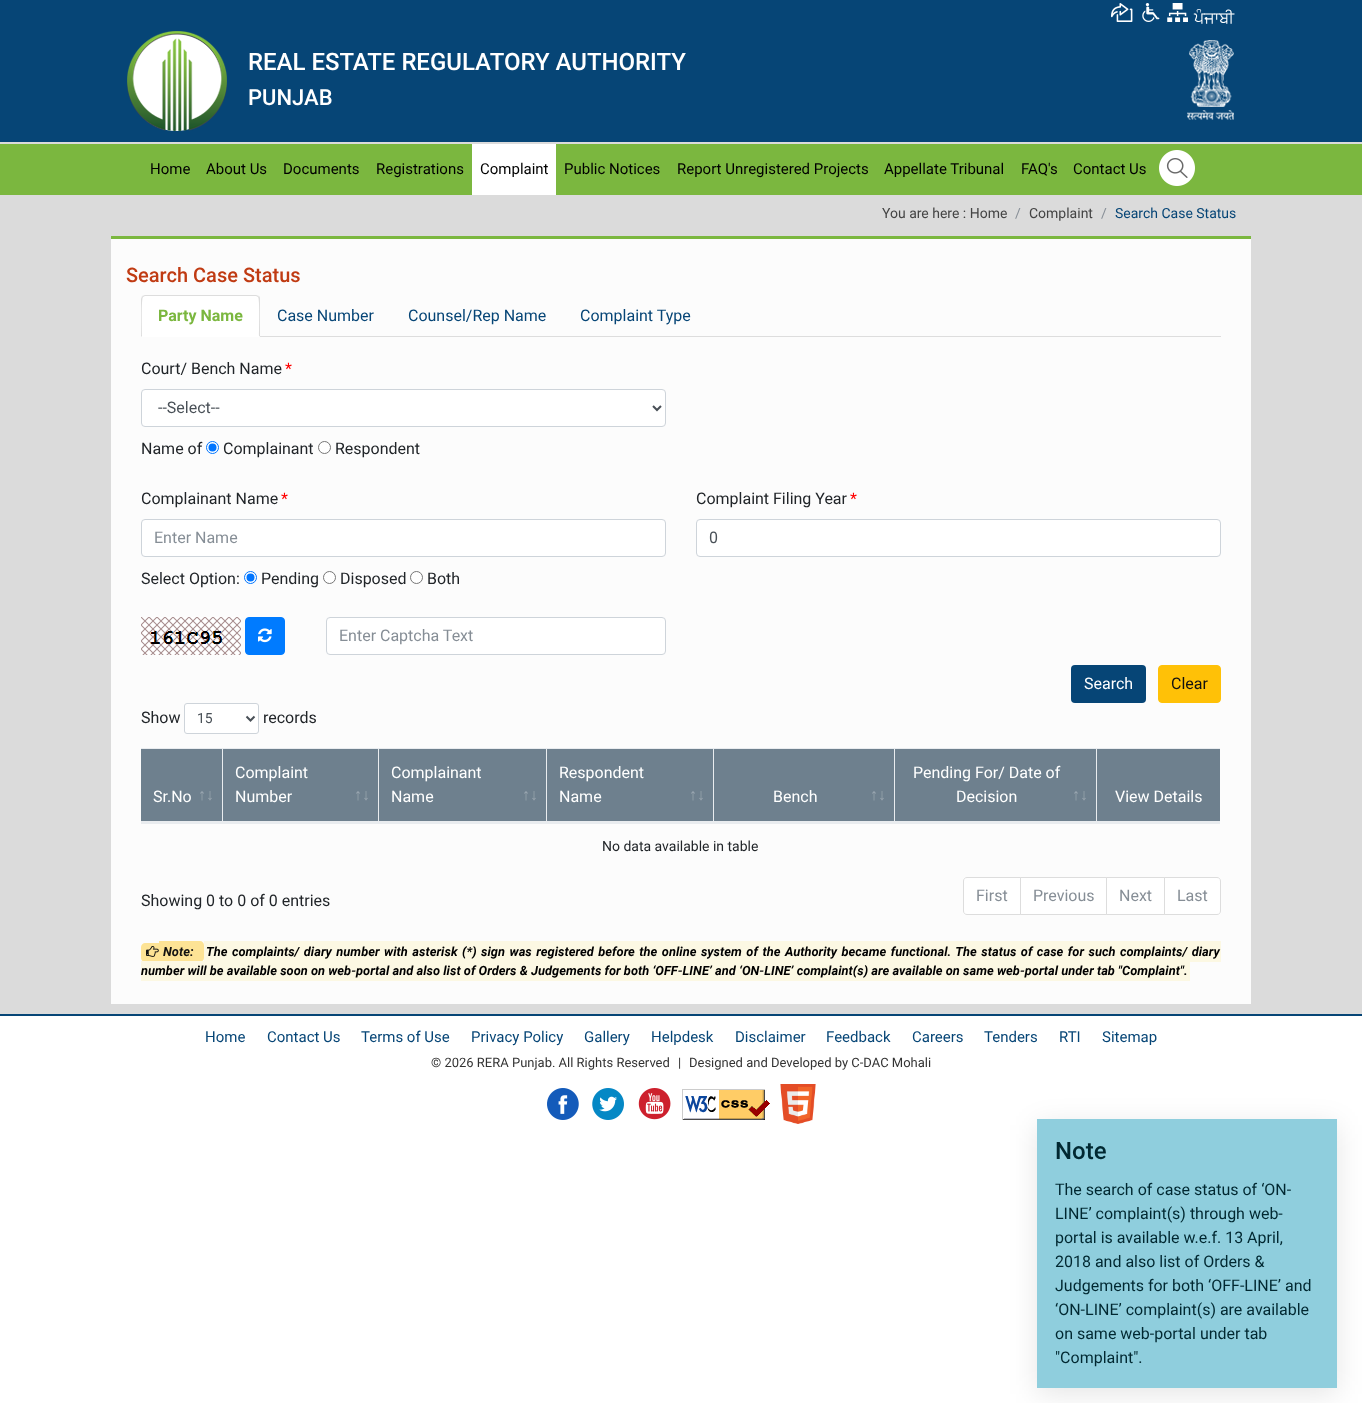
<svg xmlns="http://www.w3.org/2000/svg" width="1362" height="1403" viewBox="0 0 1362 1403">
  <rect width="100%" height="100%" fill="#fff"/>
  <path d="M0 142h1362v872H0z" fill="#dbdbdb"/>
  <path d="M0 0h1362v142H0z" fill="#064576"/>
  <image x="1111" y="3" width="22" height="19" href="img/1.png"/>
  <image x="1142" y="3" width="18" height="19" href="img/2.png"/>
  <image x="1167" y="3" width="21" height="19" href="img/3.png"/>
  <image x="127" y="31" width="100" height="100" href="img/4.png"/>
  <image x="1187" y="40" width="47" height="80" href="img/5.png"/>
  <path d="M0 144h1362v51H0z" fill="#7bb73f"/>
  <path d="M472 144h84v51H472z" fill="#fff"/>
  <image x="1159" y="150" width="36" height="36" href="img/6.png"/>
  <path d="M111 239h1140v765H111z" fill="#fcfcfc"/>
  <path d="M111 236h1140v3H111z" fill="#7bb73f"/>
  <path d="M260 336h961v1H260z" fill="#ddd"/>
  <path d="M145 295H256C258 295 260 297 260 299V337H141V299C141 297 143 295 145 295Z" fill="#fff"/>
  <path d="M145 295L142 296L143 297L145 296H256L258 297L259 296L256 295Z" fill="#ddd"/>
  <path d="M260 337V299C260 298 260 297 259 296L258 297C260 299 259 331 259 336Z" fill="#ddd"/>
  <path d="M260 337L259 336H142L141 337Z" fill="#fff"/>
  <path d="M141 337L142 336C142 331 141 299 143 297L142 296L141 299Z" fill="#ddd"/>
  <rect x="141.5" y="389.5" width="524" height="37" rx="3.5" fill="#fff" stroke="#ced4da"/>
  <path d="M653 406L657 410L661 406" fill="none" stroke="#495057" stroke-width="2"/>
  <circle cx="212.5" cy="447.5" r="6" fill="#fff" stroke="#0075ff"/>
  <circle cx="212.5" cy="447.5" r="4" fill="#0075ff"/>
  <circle cx="324.5" cy="447.5" r="6" fill="#fff" stroke="#767676"/>
  <rect x="141.5" y="519.5" width="524" height="37" rx="3.5" fill="#fff" stroke="#ced4da"/>
  <rect x="696.5" y="519.5" width="524" height="37" rx="3.5" fill="#fff" stroke="#ced4da"/>
  <circle cx="250.5" cy="577.5" r="6" fill="#fff" stroke="#0075ff"/>
  <circle cx="250.5" cy="577.5" r="4" fill="#0075ff"/>
  <circle cx="329.5" cy="577.5" r="6" fill="#fff" stroke="#767676"/>
  <circle cx="416.5" cy="577.5" r="6" fill="#fff" stroke="#767676"/>
  <image x="141" y="617" width="100" height="38" href="img/7.png"/>
  <rect x="245.5" y="617.5" width="39" height="37" rx="3.5" fill="#007bff" stroke="#007bff"/>
  <image x="258" y="628" width="14" height="15" href="img/8.png"/>
  <rect x="326.5" y="617.5" width="339" height="37" rx="3.5" fill="#fff" stroke="#ced4da"/>
  <rect x="1071" y="665" width="75" height="38" rx="4" fill="#064576"/>
  <rect x="1158.5" y="665.5" width="62" height="37" rx="3.5" fill="#ffc107" stroke="#ffc107"/>
  <rect x="184.5" y="703.5" width="74" height="30" rx="2.5" fill="#fff" stroke="#ced4da"/>
  <path d="M246.5 716.5L250.5 720.5L254.5 716.5" fill="none" stroke="#495057" stroke-width="2"/>
  <path d="M141 749h1079v72H141z" fill="#6e808e"/>
  <path d="M141 748h956v1H141z" fill="#e9ecef"/>
  <path d="M222 748h1v75H222z" fill="#e9ecef"/>
  <path d="M141 821h82v2H141z" fill="#e9ecef"/>
  <path d="M378 748h1v75H378z" fill="#e9ecef"/>
  <path d="M223 821h156v2H223z" fill="#e9ecef"/>
  <path d="M546 748h1v75H546z" fill="#e9ecef"/>
  <path d="M379 821h168v2H379z" fill="#e9ecef"/>
  <path d="M713 748h1v75H713z" fill="#e9ecef"/>
  <path d="M547 821h167v2H547z" fill="#e9ecef"/>
  <path d="M894 748h1v75H894z" fill="#e9ecef"/>
  <path d="M714 821h181v2H714z" fill="#e9ecef"/>
  <path d="M1096 748h1v75H1096z" fill="#e9ecef"/>
  <path d="M895 821h202v2H895z" fill="#e9ecef"/>
  <path d="M1097 748h123v1H1097z" fill="#e9ecef"/>
  <path d="M1097 821h123v2H1097z" fill="#e9ecef"/>
  <path d="M141 823h1079v1H141z" fill="#e9ecef"/>
  <path d="M967 877.5H1020.5V914.5H967C965 914.5 963.5 913 963.5 911V881C963.5 879 965 877.5 967 877.5Z" fill="#fff" stroke="#ddd"/>
  <path d="M1020.5 877.5h86v37H1020.5z" fill="#fff" stroke="#ddd"/>
  <path d="M1106.5 877.5h58v37H1106.5z" fill="#fff" stroke="#ddd"/>
  <path d="M1164.5 877.5H1217C1219 877.5 1220.5 879 1220.5 881V911C1220.5 913 1219 914.5 1217 914.5H1164.5Z" fill="#fff" stroke="#ddd"/>
  <path d="M145 943H159V962H145C143 962 141 960 141 958V947C141 945 143 943 145 943Z" fill="#fde395"/>
  <path d="M159 941H200C202 941 204 943 204 945V958C204 960 202 962 200 962H159Z" fill="#fde395"/>
  <image x="146" y="946" width="13" height="11" href="img/9.png"/>
  <path d="M204 941h1017v21H204z" fill="#fcf8e3"/>
  <path d="M141 961h1049v20H141z" fill="#fcf8e3"/>
  <path d="M0 1014h1362v2H0z" fill="#064576"/>
  <image x="547" y="1088" width="32" height="32" href="img/10.png"/>
  <image x="592" y="1088" width="32" height="32" href="img/11.png"/>
  <image x="638" y="1088" width="33" height="32" href="img/12.png"/>
  <image x="682" y="1089" width="88" height="31" href="img/13.png"/>
  <image x="780" y="1084" width="36" height="40" href="img/14.png"/>
  <path d="M1037 1125h300v269H1037z" fill="#0000001a" filter="blur(14px)"/>
  <path d="M1037 1119h300v269H1037z" fill="#8fcedd"/>
  <text x="1194" y="23" font-family="FreeSans" font-size="16" fill="#fff">ਪੰਜਾਬੀ</text>
  <text x="248" y="70" font-family="Roboto" font-size="24" font-weight="500" fill="#fff">REAL ESTATE REGULATORY AUTHORITY</text>
  <text x="248" y="105" font-family="Roboto" font-size="22" font-weight="500" fill="#fff">PUNJAB</text>
  <g font-family="Roboto" font-size="15" fill="#000">
    <text x="150" y="174">Home</text>
    <text x="206" y="174">About Us</text>
    <text x="283" y="174">Documents</text>
    <text x="376" y="174">Registrations</text>
    <text x="480" y="174">Complaint</text>
    <text x="564" y="174">Public Notices</text>
    <text x="677" y="174">Report Unregistered Projects</text>
    <text x="884" y="174">Appellate Tribunal</text>
    <text x="1021" y="174">FAQ's</text>
    <text x="1073" y="174">Contact Us</text>
  </g>
  <text x="882" y="218" font-family="Roboto" font-size="14" fill="#444">You are here : Home</text>
  <text x="1015" y="218" font-family="Roboto" font-size="14" fill="#868e96">/</text>
  <text x="1029" y="218" font-family="Roboto" font-size="14" fill="#444">Complaint</text>
  <text x="1101" y="218" font-family="Roboto" font-size="14" fill="#868e96">/</text>
  <text x="1115" y="218" font-family="Roboto" font-size="14" fill="#064576">Search Case Status</text>
  <text x="126" y="282" font-family="Roboto" font-size="20" font-weight="500" fill="#c03b13">Search Case Status</text>
  <text x="158" y="321" font-family="Roboto" font-size="16" font-weight="bold" fill="#7bb73f">Party Name</text>
  <g font-family="Roboto" font-size="16" fill="#064576">
    <text x="277" y="321">Case Number</text>
    <text x="408" y="321">Counsel/Rep Name</text>
    <text x="580" y="321">Complaint Type</text>
  </g>
  <text x="141" y="374" font-family="Roboto" font-size="16" fill="#212529">Court/ Bench Name</text>
  <text x="285" y="374" font-family="Roboto" font-size="16" fill="#f00">*</text>
  <text x="158" y="413" font-family="Roboto" font-size="16" fill="#495057">--Select--</text>
  <g font-family="Roboto" font-size="16" fill="#212529">
    <text x="141" y="454">Name of</text>
    <text x="223" y="454">Complainant</text>
    <text x="335" y="454">Respondent</text>
    <text x="141" y="504">Complainant Name</text>
  </g>
  <text x="281" y="504" font-family="Roboto" font-size="16" fill="#f00">*</text>
  <text x="154" y="543" font-family="Roboto" font-size="16" fill="#868e96">Enter Name</text>
  <text x="696" y="504" font-family="Roboto" font-size="16" fill="#212529">Complaint Filing Year</text>
  <text x="850" y="504" font-family="Roboto" font-size="16" fill="#f00">*</text>
  <text x="709" y="543" font-family="Roboto" font-size="16" fill="#495057">0</text>
  <g font-family="Roboto" font-size="16" fill="#212529">
    <text x="141" y="584">Select Option:</text>
    <text x="261" y="584">Pending</text>
    <text x="340" y="584">Disposed</text>
    <text x="427" y="584">Both</text>
  </g>
  <text x="339" y="641" font-family="Roboto" font-size="16" fill="#868e96">Enter Captcha Text</text>
  <text x="1084" y="689" font-family="Roboto" font-size="16" fill="#fff">Search</text>
  <text x="1171" y="689" font-family="Roboto" font-size="16" fill="#111">Clear</text>
  <text x="141" y="723" font-family="Roboto" font-size="16" fill="#212529">Show</text>
  <text x="197" y="723" font-family="Roboto" font-size="14" fill="#495057">15</text>
  <text x="263" y="723" font-family="Roboto" font-size="16" fill="#212529">records</text>
  <text x="153" y="802" font-family="Roboto" font-size="16" fill="#fff">Sr.No</text>
  <text x="198" y="800" font-family="Liberation Serif" font-size="16" fill="#9aa6b0">↑↓</text>
  <g font-family="Roboto" font-size="16" fill="#fff">
    <text x="235" y="778">Complaint</text>
    <text x="235" y="802">Number</text>
  </g>
  <text x="354" y="800" font-family="Liberation Serif" font-size="16" fill="#9aa6b0">↑↓</text>
  <g font-family="Roboto" font-size="16" fill="#fff">
    <text x="391" y="778">Complainant</text>
    <text x="391" y="802">Name</text>
  </g>
  <text x="522" y="800" font-family="Liberation Serif" font-size="16" fill="#9aa6b0">↑↓</text>
  <g font-family="Roboto" font-size="16" fill="#fff">
    <text x="559" y="778">Respondent</text>
    <text x="559" y="802">Name</text>
  </g>
  <text x="689" y="800" font-family="Liberation Serif" font-size="16" fill="#9aa6b0">↑↓</text>
  <text x="773" y="802" font-family="Roboto" font-size="16" fill="#fff">Bench</text>
  <text x="870" y="800" font-family="Liberation Serif" font-size="16" fill="#9aa6b0">↑↓</text>
  <g font-family="Roboto" font-size="16" fill="#fff">
    <text x="913" y="778">Pending For/ Date of</text>
    <text x="956" y="802">Decision</text>
  </g>
  <text x="1072" y="800" font-family="Liberation Serif" font-size="16" fill="#9aa6b0">↑↓</text>
  <text x="1115" y="802" font-family="Roboto" font-size="16" fill="#fff">View Details</text>
  <text x="602" y="851" font-family="Roboto" font-size="14" fill="#212529">No data available in table</text>
  <text x="141" y="906" font-family="Roboto" font-size="16" fill="#212529">Showing 0 to 0 of 0 entries</text>
  <g font-family="Roboto" font-size="16" fill="#868e96">
    <text x="976" y="901">First</text>
    <text x="1033" y="901">Previous</text>
    <text x="1119" y="901">Next</text>
    <text x="1177" y="901">Last</text>
  </g>
  <text x="163" y="956" font-family="Roboto" font-size="12.8" font-weight="bold" font-style="italic" fill="#111">Note:</text>
  <g font-family="Roboto" font-size="12.8" font-weight="bold" font-style="italic" fill="#000">
    <text x="206" y="956" word-spacing="1.3">The complaints/ diary number with asterisk (*) sign was registered before the online system of the Authority became functional. The status of case for such complaints/ diary</text>
    <text x="141" y="975">number will be available soon on web-portal and also list of Orders &amp; Judgements for both ‘OFF-LINE’ and ‘ON-LINE’ complaint(s) are available on same web-portal under tab "Complaint".</text>
  </g>
  <g font-family="Roboto" font-size="15" fill="#064576">
    <text x="205" y="1042">Home</text>
    <text x="267" y="1042">Contact Us</text>
    <text x="361" y="1042">Terms of Use</text>
    <text x="471" y="1042">Privacy Policy</text>
    <text x="584" y="1042">Gallery</text>
    <text x="651" y="1042">Helpdesk</text>
    <text x="735" y="1042">Disclaimer</text>
    <text x="826" y="1042">Feedback</text>
    <text x="912" y="1042">Careers</text>
    <text x="984" y="1042">Tenders</text>
    <text x="1059" y="1042">RTI</text>
    <text x="1102" y="1042">Sitemap</text>
  </g>
  <g font-family="Roboto" font-size="13" fill="#333">
    <text x="431" y="1067">© 2026 RERA Punjab. All Rights Reserved</text>
    <text x="678" y="1067">|</text>
    <text x="689" y="1067">Designed and Developed by C-DAC Mohali</text>
  </g>
  <text x="1055" y="1159" font-family="Roboto" font-size="24" font-weight="500" fill="#012831">Note</text>
  <g font-family="Roboto" font-size="16" fill="#012831">
    <text x="1055" y="1195">The search of case status of ‘ON-</text>
    <text x="1055" y="1219">LINE’ complaint(s) through web-</text>
    <text x="1055" y="1243">portal is available w.e.f. 13 April,</text>
    <text x="1055" y="1267">2018 and also list of Orders &amp;</text>
    <text x="1055" y="1291">Judgements for both ‘OFF-LINE’ and</text>
    <text x="1055" y="1315">‘ON-LINE’ complaint(s) are available</text>
    <text x="1055" y="1339">on same web-portal under tab</text>
    <text x="1055" y="1363">"Complaint".</text>
  </g>
</svg>
